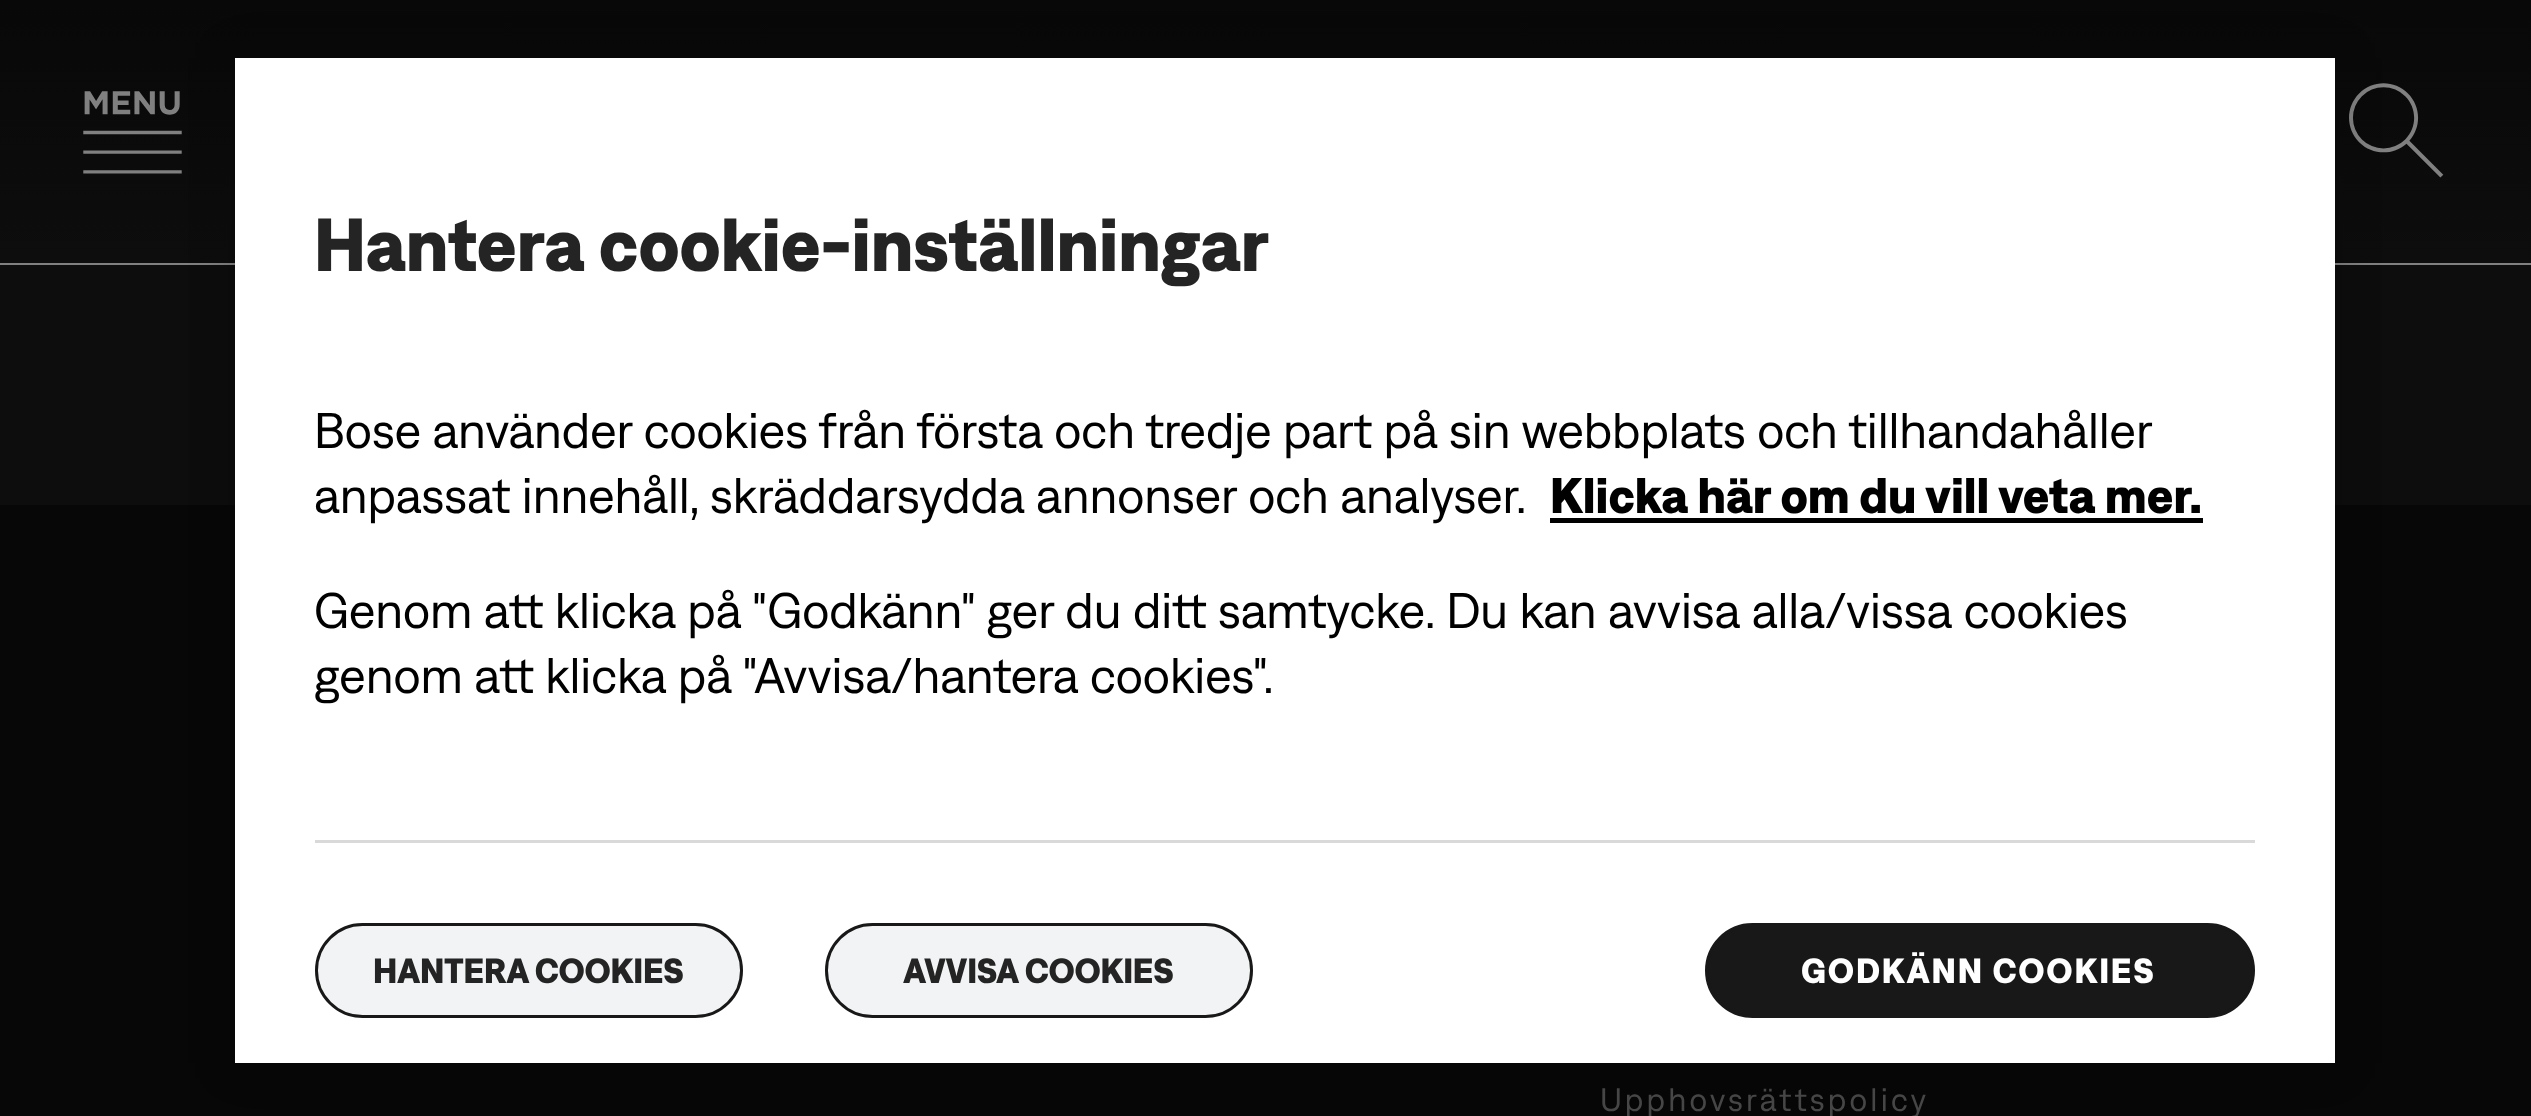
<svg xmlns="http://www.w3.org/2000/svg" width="2531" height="1116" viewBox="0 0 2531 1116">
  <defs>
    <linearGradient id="g1" gradientUnits="userSpaceOnUse" x1="1266" y1="0" x2="1266" y2="263"><stop offset="0" stop-color="#080808"/><stop offset="1" stop-color="#0d0d0d"/></linearGradient>
  </defs>
  <rect width="100%" height="100%" fill="#808080"/>
  <path d="M0 0h2531v263H0z" fill="url(#g1)"/>
  <image x="83" y="91" width="99" height="83" href="img/1.png"/>
  <image x="2349" y="83" width="95" height="95" href="img/2.png"/>
  <path d="M0 505h2531v611H0z" fill="#070707"/>
  <path d="M0 265h2531v240H0z" fill="#0d0d0d"/>
  <path d="M235 58h2100v1005H235z" fill="#00000033" filter="blur(22.5px)"/>
  <path d="M235 58h2100v1005H235z" fill="#fff"/>
  <path d="M1550 518h653v5H1550z" fill="#000"/>
  <path d="M315 840h1940v3H315z" fill="#d9d9d9"/>
  <rect x="316.5" y="924.5" width="425" height="92" rx="46" fill="#f2f3f4" stroke="#181818" stroke-width="3"/>
  <rect x="826.5" y="924.5" width="425" height="92" rx="46" fill="#f2f3f4" stroke="#181818" stroke-width="3"/>
  <rect x="1706.5" y="924.5" width="547" height="92" rx="46" fill="#181818" stroke="#181818" stroke-width="3"/>
  <text x="314" y="271" font-family="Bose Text" font-size="75" font-weight="bold" fill="#242424">Hantera cookie-inställningar</text>
  <g font-family="Bose Text" font-size="50" fill="#000">
    <text x="314" y="448">Bose använder cookies från första och tredje part på sin webbplats och tillhandahåller</text>
    <text x="314" y="513">anpassat innehåll, skräddarsydda annonser och analyser.</text>
  </g>
  <text x="1550" y="513" font-family="Bose Text" font-size="50" font-weight="bold" fill="#000">Klicka här om du vill veta mer.</text>
  <g font-family="Bose Text" font-size="50" fill="#000">
    <text x="314" y="628">Genom att klicka på "Godkänn" ger du ditt samtycke. Du kan avvisa alla/vissa cookies</text>
    <text x="314" y="693">genom att klicka på "Avvisa/hantera cookies".</text>
  </g>
  <g font-family="Bose Text" font-size="35" font-weight="bold" letter-spacing="-0.3" fill="#242424">
    <text x="373" y="983">HANTERA COOKIES</text>
    <text x="903" y="983">AVVISA COOKIES</text>
  </g>
  <text x="1801" y="983" font-family="Bose Text" font-size="35" font-weight="bold" letter-spacing="1.75" fill="#fff">GODKÄNN COOKIES</text>
  <text x="1600" y="1111" font-family="Bose Text" font-size="32.5" letter-spacing="3.25" fill="#464646">Upphovsrättspolicy</text>
</svg>
